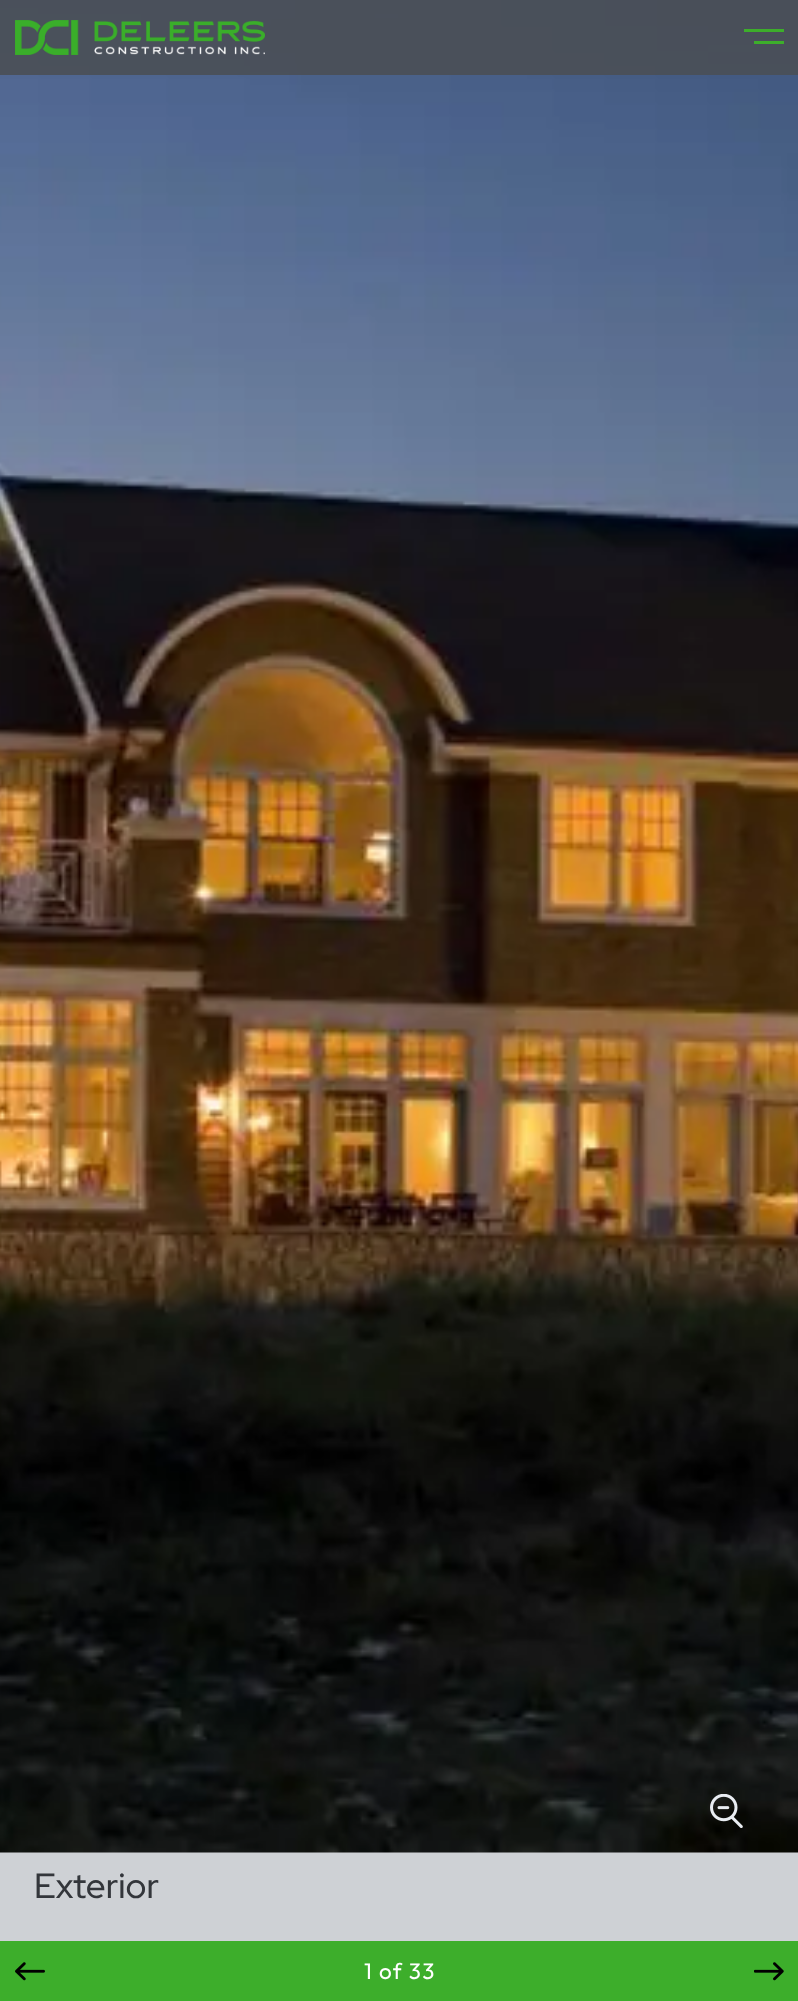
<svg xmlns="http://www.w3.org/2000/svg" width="798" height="2001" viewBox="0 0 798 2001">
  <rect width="100%" height="100%" fill="#ced1d5"/>
  <image x="0" y="0" width="798" height="1853" href="img/2.png"/>
  <path d="M0 0h798v75H0z" fill="#4a4f55e6"/>
  <image x="15" y="20" width="250" height="35" href="img/1.png"/>
  <path d="M744 29h40v3H744z" fill="#3dae2b"/>
  <path d="M754 41h30v3H754z" fill="#3dae2b"/>
  <image x="710" y="1794" width="33" height="34" href="img/3.png"/>
  <path d="M0 1941h798v60H0z" fill="#3dae2b"/>
  <image x="15" y="1962" width="30" height="19" href="img/4.png"/>
  <image x="754" y="1962" width="30" height="19" href="img/5.png"/>
  <text x="34" y="1898" font-family="Red Hat Display" font-size="35" font-weight="500" fill="#33363b">Exterior</text>
  <text x="364" y="1979" font-family="Outfit" font-size="22.5" letter-spacing="1.25" fill="#fff">1 of 33</text>
</svg>
